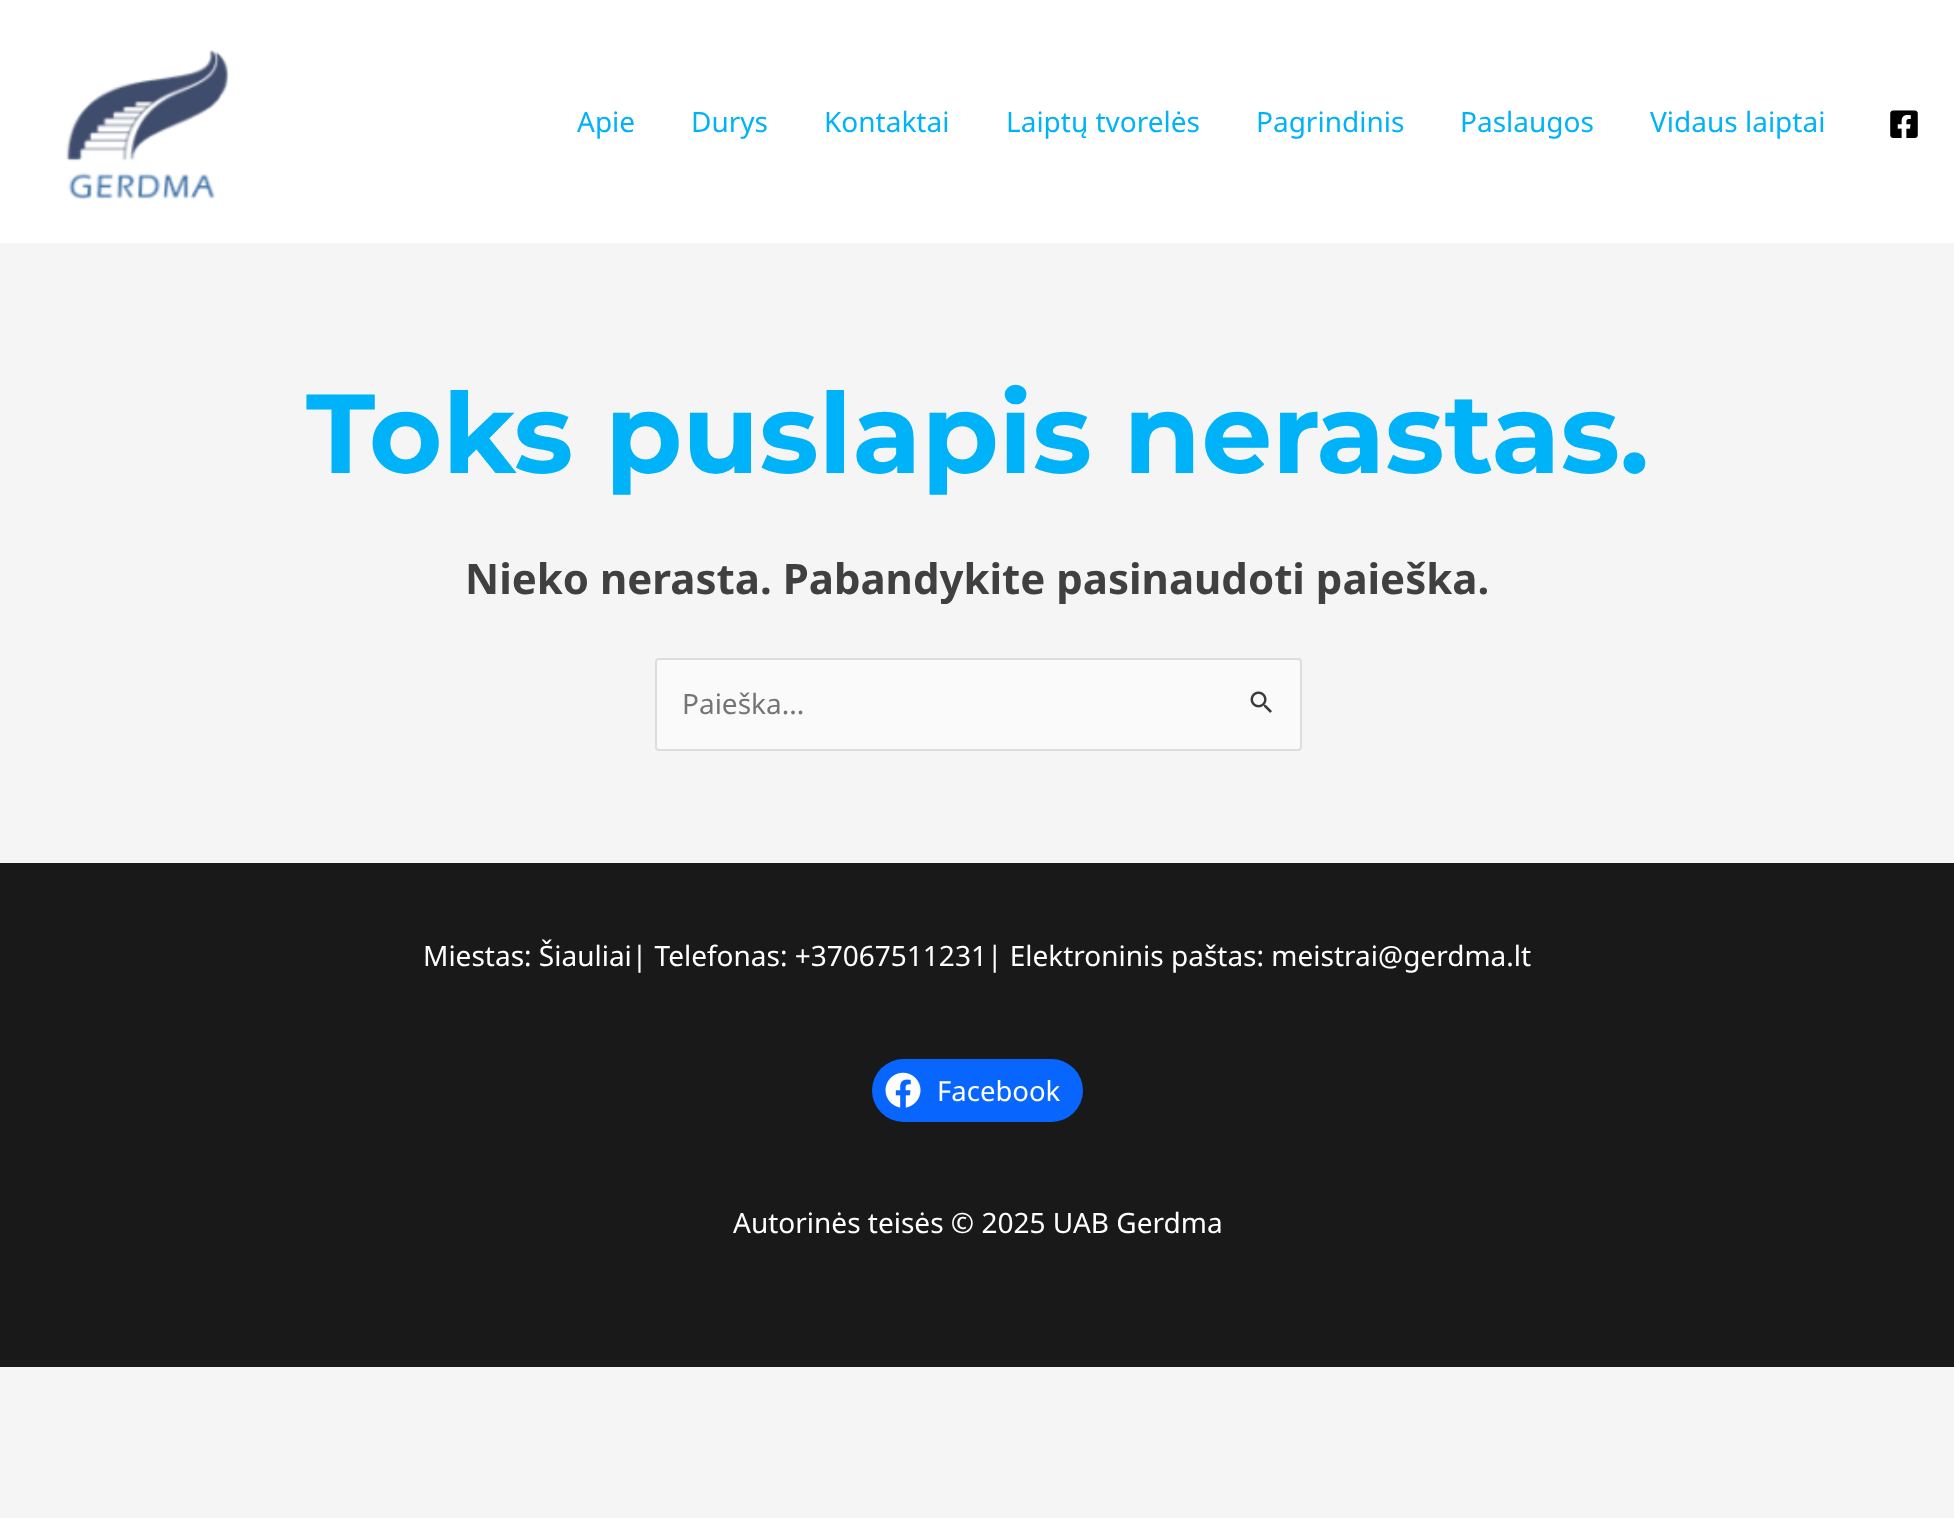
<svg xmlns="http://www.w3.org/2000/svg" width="1954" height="1518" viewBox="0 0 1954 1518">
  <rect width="100%" height="100%" fill="#f5f5f5"/>
  <path d="M0 0h1954v243H0z" fill="#fff"/>
  <image x="66" y="50" width="164" height="150" href="img/1.png"/>
  <image x="1890" y="110" width="28" height="28" href="img/2.png"/>
  <rect x="656" y="659" width="645" height="91" rx="3" fill="#fafafa" stroke="#ddd" stroke-width="2"/>
  <image x="1250" y="691" width="22" height="22" href="img/3.png"/>
  <path d="M0 863h1954v504H0z" fill="#191919"/>
  <rect x="872" y="1059" width="211" height="63" rx="31.5" fill="#0866ff"/>
  <image x="885" y="1072" width="36" height="36" href="img/4.png"/>
  <g font-family="Noto Sans" font-size="28" fill="#00b2f8">
    <text x="577" y="132">Apie</text>
    <text x="691" y="132">Durys</text>
    <text x="824" y="132">Kontaktai</text>
    <text x="1006" y="132">Laiptų tvorelės</text>
    <text x="1256" y="132">Pagrindinis</text>
    <text x="1460" y="132">Paslaugos</text>
    <text x="1650" y="132">Vidaus laiptai</text>
  </g>
  <text x="306" y="473" font-family="Montserrat" font-size="112" font-weight="100" fill="#00b2f8">Toks puslapis nerastas.</text>
  <text x="465" y="594" font-family="Noto Sans" font-size="42" font-weight="bold" fill="#404040">Nieko nerasta. Pabandykite pasinaudoti paieška.</text>
  <text x="682" y="714" font-family="Noto Sans" font-size="28" fill="#757575">Paieška...</text>
  <text x="423" y="966" font-family="Noto Sans" font-size="28" fill="#fff">Miestas: Šiauliai| Telefonas: +37067511231| Elektroninis paštas: meistrai@gerdma.lt</text>
  <text x="937" y="1101" font-family="Noto Sans" font-size="27.5" fill="#fff">Facebook</text>
  <text x="733" y="1233" font-family="Noto Sans" font-size="28" fill="#fff">Autorinės teisės © 2025 UAB Gerdma</text>
</svg>
